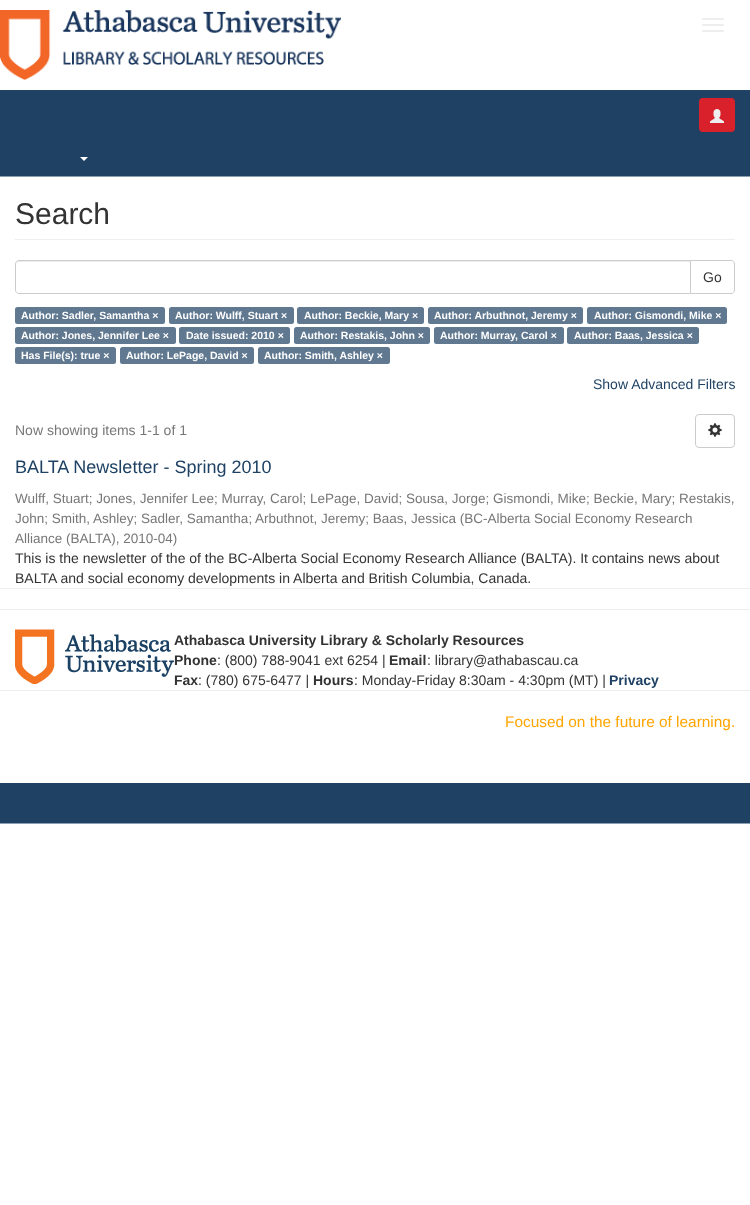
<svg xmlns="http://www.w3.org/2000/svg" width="750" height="1205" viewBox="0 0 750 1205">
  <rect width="100%" height="100%" fill="#fff"/>
  <image x="0" y="10" width="341" height="70" href="img/1.png"/>
  <rect x="702" y="18" width="22" height="2" rx="1" fill="#eee"/>
  <rect x="702" y="24" width="22" height="2" rx="1" fill="#eee"/>
  <rect x="702" y="30" width="22" height="2" rx="1" fill="#eee"/>
  <path d="M0 90h750v86H0z" fill="#1e4164"/>
  <rect x="699" y="98" width="36" height="34" rx="4" fill="#d8212a"/>
  <image x="710" y="109" width="14" height="14" href="img/2.png"/>
  <path d="M0 176h750v1H0z" fill="#8b9eb2"/>
  <path d="M80 157H88L84 161Z" fill="#fff"/>
  <path d="M15 239h720v1H15z" fill="#eee"/>
  <path d="M690.5 260.5H731C733 260.5 734.5 262 734.5 264V290C734.5 292 733 293.5 731 293.5H690.5Z" fill="none" stroke="#ccc"/>
  <path d="M19 260H691V294H19C17 294 15 292 15 290V264C15 262 17 260 19 260Z" fill="#fff"/>
  <path d="M19 262H690V261H19C17 261 16 262 16 264V265C16 263 17 262 19 262Z" fill="#ececec"/>
  <path d="M19 260.5H690.5V293.5H19C17 293.5 15.5 292 15.5 290V264C15.5 262 17 260.5 19 260.5Z" fill="none" stroke="#ccc"/>
  <rect x="15" y="307" width="150" height="17" rx="2.5" fill="#607890"/>
  <rect x="169" y="307" width="125" height="17" rx="2.5" fill="#607890"/>
  <rect x="297" y="307" width="127" height="17" rx="2.5" fill="#607890"/>
  <rect x="428" y="307" width="155" height="17" rx="2.5" fill="#607890"/>
  <rect x="587" y="307" width="140" height="17" rx="2.5" fill="#607890"/>
  <rect x="15" y="327" width="161" height="17" rx="2.5" fill="#607890"/>
  <rect x="179" y="327" width="111" height="17" rx="2.5" fill="#607890"/>
  <rect x="294" y="327" width="136" height="17" rx="2.5" fill="#607890"/>
  <rect x="434" y="327" width="130" height="17" rx="2.5" fill="#607890"/>
  <rect x="567" y="327" width="132" height="17" rx="2.5" fill="#607890"/>
  <rect x="15" y="347" width="101" height="17" rx="2.5" fill="#607890"/>
  <rect x="120" y="347" width="134" height="17" rx="2.5" fill="#607890"/>
  <rect x="258" y="347" width="132" height="17" rx="2.5" fill="#607890"/>
  <rect x="695.5" y="414.5" width="39" height="33" rx="3.5" fill="none" stroke="#ccc"/>
  <image x="708" y="423" width="14" height="14" href="img/3.png"/>
  <path d="M0 588h750v1H0z" fill="#eee"/>
  <image x="15" y="629" width="159" height="55" href="img/4.png"/>
  <path d="M0 609h750v1H0z" fill="#eee"/>
  <path d="M0 690h750v1H0z" fill="#eee"/>
  <path d="M0 783h750v40H0z" fill="#1e4164"/>
  <path d="M0 823h750v1H0z" fill="#8b9eb2"/>
  <text x="15" y="224" font-family="Liberation Sans" font-size="30" fill="#333">Search</text>
  <text x="703" y="282" font-family="Liberation Sans" font-size="14" fill="#333">Go</text>
  <g font-family="Liberation Sans" font-size="10.5" font-weight="bold" fill="#fff">
    <text x="21" y="319">Author: Sadler, Samantha ×</text>
    <text x="175" y="319">Author: Wulff, Stuart ×</text>
    <text x="304" y="319">Author: Beckie, Mary ×</text>
    <text x="434" y="319">Author: Arbuthnot, Jeremy ×</text>
    <text x="594" y="319">Author: Gismondi, Mike ×</text>
    <text x="21" y="339">Author: Jones, Jennifer Lee ×</text>
    <text x="186" y="339">Date issued: 2010 ×</text>
    <text x="300" y="339">Author: Restakis, John ×</text>
    <text x="440" y="339">Author: Murray, Carol ×</text>
    <text x="574" y="339">Author: Baas, Jessica ×</text>
    <text x="21" y="359">Has File(s): true ×</text>
    <text x="126" y="359">Author: LePage, David ×</text>
    <text x="264" y="359">Author: Smith, Ashley ×</text>
  </g>
  <text x="593" y="389" font-family="Liberation Sans" font-size="14" fill="#1e4164">Show Advanced Filters</text>
  <text x="15" y="435" font-family="Liberation Sans" font-size="14" fill="#777">Now showing items 1-1 of 1</text>
  <text x="15" y="473" font-family="Liberation Sans" font-size="18" fill="#1e4164">BALTA Newsletter - Spring 2010</text>
  <g font-family="Liberation Sans" font-size="13.5" fill="#777">
    <text x="15" y="503">Wulff, Stuart; Jones, Jennifer Lee; Murray, Carol; LePage, David; Sousa, Jorge; Gismondi, Mike; Beckie, Mary; Restakis,</text>
    <text x="15" y="523">John; Smith, Ashley; Sadler, Samantha;</text>
    <text x="255" y="523">Arbuthnot, Jeremy; Baas, Jessica (BC-Alberta Social Economy Research</text>
    <text x="15" y="543">Alliance (BALTA), 2010-04)</text>
  </g>
  <g font-family="Liberation Sans" font-size="14" fill="#333">
    <text x="15" y="563">This is the newsletter of the of the BC-Alberta Social Economy Research Alliance (BALTA). It contains news about</text>
    <text x="15" y="583">BALTA and social economy developments in Alberta and British Columbia, Canada.</text>
  </g>
  <g font-family="Liberation Sans" font-size="14" font-weight="bold" fill="#333">
    <text x="174" y="645">Athabasca University Library &amp; Scholarly Resources</text>
    <text x="174" y="665">Phone</text>
  </g>
  <text x="217" y="665" font-family="Liberation Sans" font-size="14" fill="#333">: (800) 788-9041 ext 6254 |</text>
  <text x="389" y="665" font-family="Liberation Sans" font-size="14" font-weight="bold" fill="#333">Email</text>
  <text x="427" y="665" font-family="Liberation Sans" font-size="14" fill="#333">: library@athabascau.ca</text>
  <text x="174" y="685" font-family="Liberation Sans" font-size="14" font-weight="bold" fill="#333">Fax</text>
  <text x="198" y="685" font-family="Liberation Sans" font-size="14" fill="#333">: (780) 675-6477 |</text>
  <text x="313" y="685" font-family="Liberation Sans" font-size="14" font-weight="bold" fill="#333">Hours</text>
  <text x="354" y="685" font-family="Liberation Sans" font-size="14" fill="#333">: Monday-Friday 8:30am - 4:30pm (MT) |</text>
  <text x="609" y="685" font-family="Liberation Sans" font-size="14" font-weight="bold" fill="#1e4164">Privacy</text>
  <text x="505" y="727" font-family="Liberation Sans" font-size="15.4" fill="#ffa500">Focused on the future of learning.</text>
</svg>
